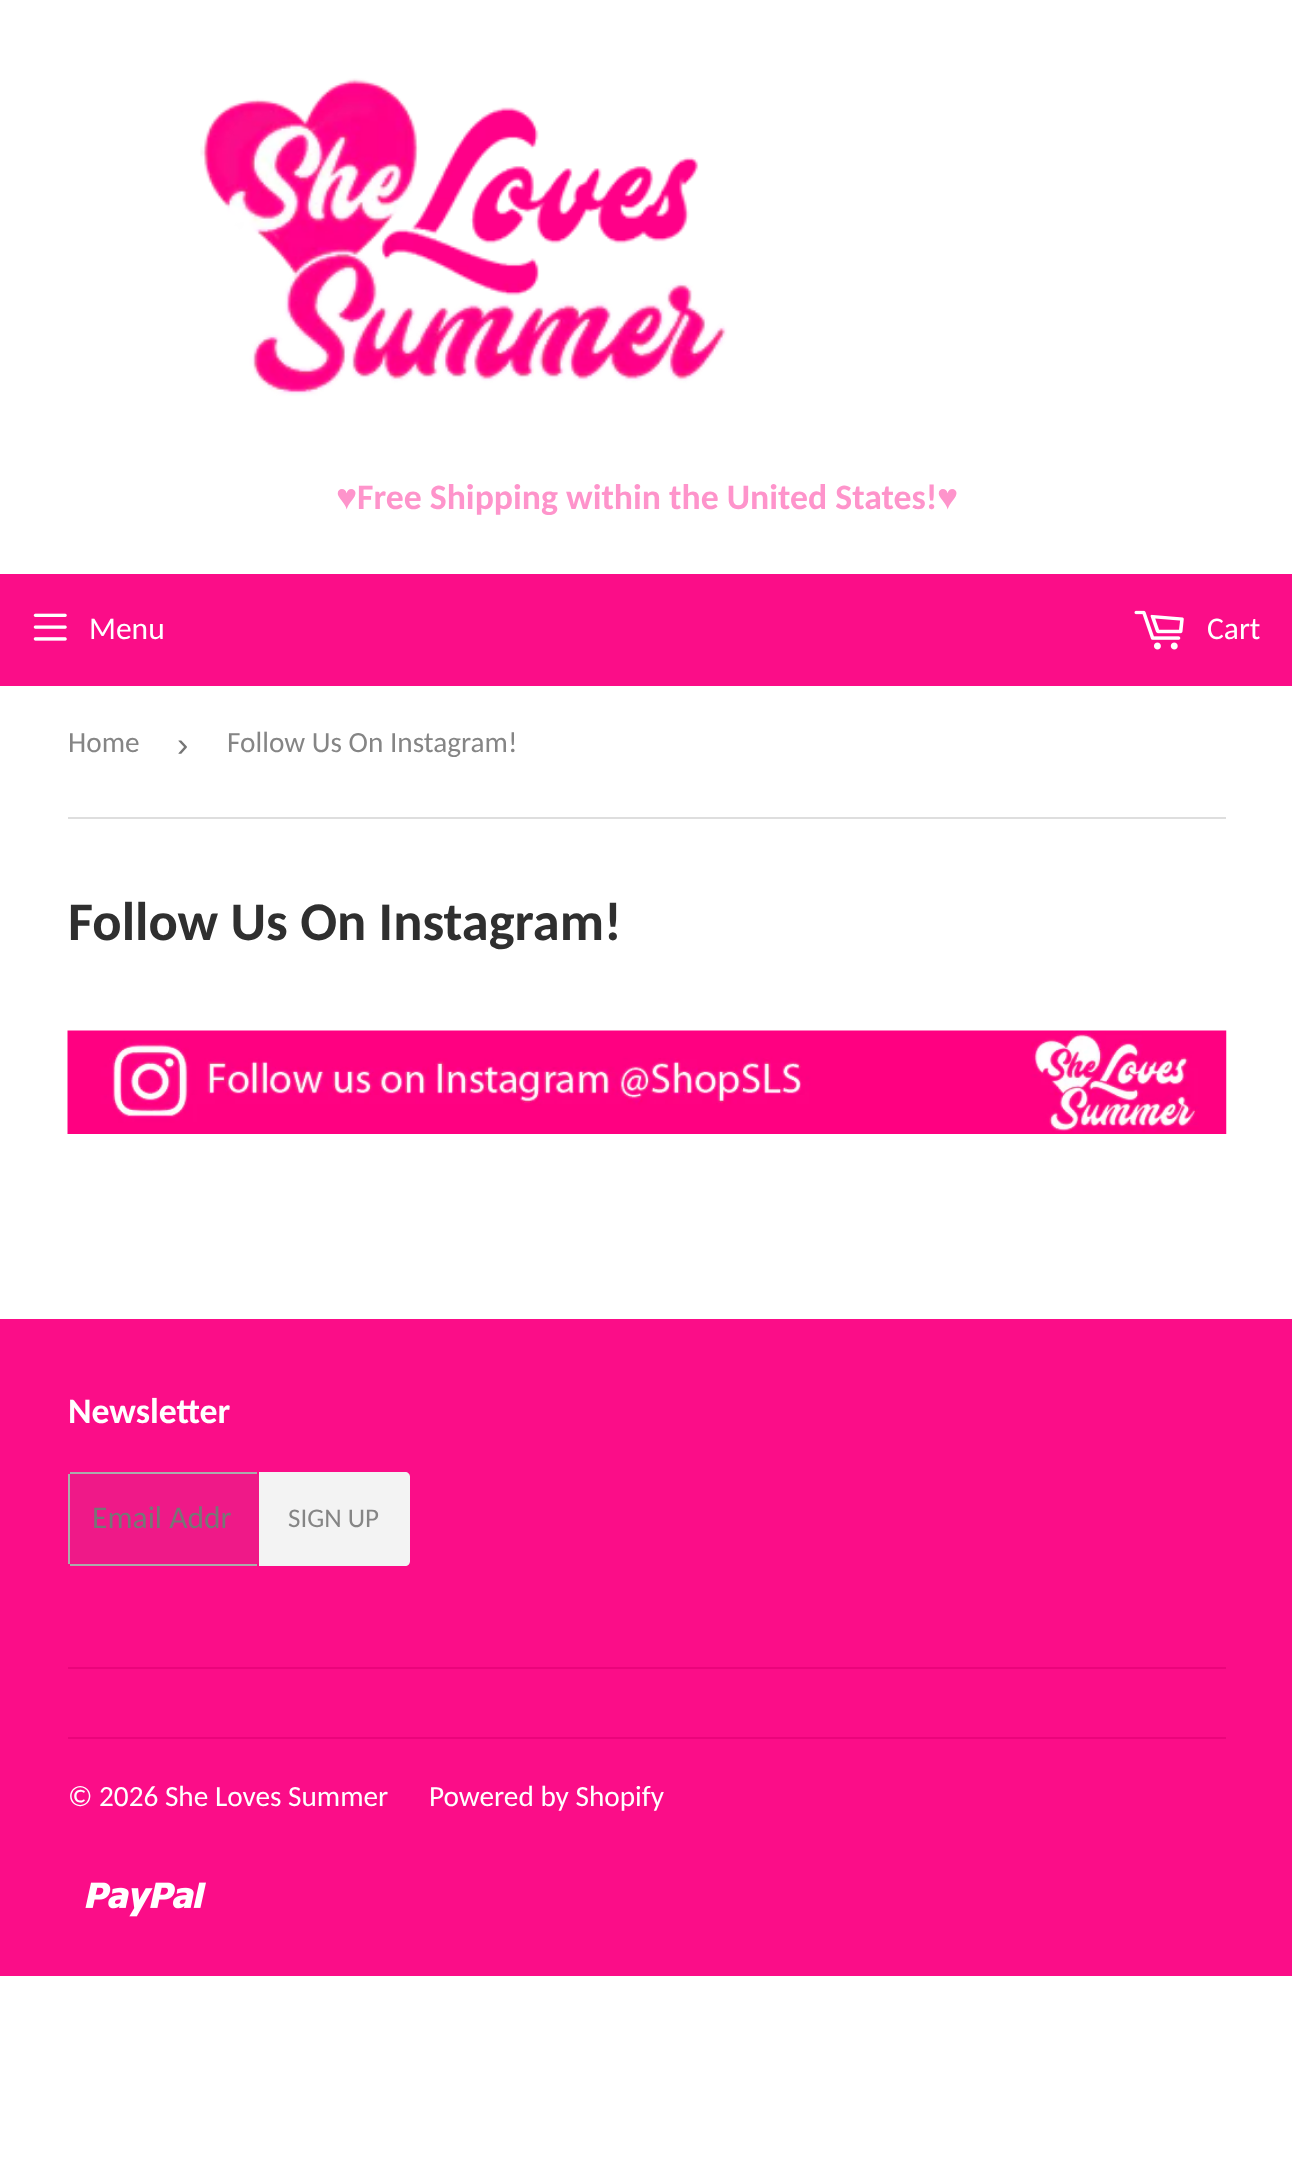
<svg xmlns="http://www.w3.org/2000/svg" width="1292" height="2158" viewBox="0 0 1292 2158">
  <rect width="100%" height="100%" fill="#fff"/>
  <image x="200" y="78" width="527" height="318" href="img/1.png"/>
  <path d="M0 574h1292v112H0z" fill="#fb0d88"/>
  <image x="33" y="613" width="34" height="28" href="img/2.png"/>
  <image x="1134" y="610" width="50" height="40" href="img/3.png"/>
  <path d="M68 817h1158v2H68z" fill="#dedede"/>
  <image x="67" y="1030" width="1160" height="104" href="img/4.png"/>
  <path d="M0 1319h1292v657H0z" fill="#fb0d88"/>
  <rect x="68" y="1472" width="191" height="94" rx="5" fill="#ef1988"/>
  <path d="M70 1472h187v2H70z" fill="#ababab"/>
  <path d="M70 1564h187v2H70z" fill="#ababab"/>
  <path d="M68 1474h2v90H68z" fill="#ababab"/>
  <path d="M259 1472H405C408 1472 410 1474 410 1477V1561C410 1564 408 1566 405 1566H259Z" fill="#f3f3f3"/>
  <path d="M68 1667h1158v2H68z" fill="#eb047b"/>
  <path d="M68 1737h1158v2H68z" fill="#eb047b"/>
  <image x="85" y="1882" width="121" height="35" href="img/5.png"/>
  <text x="336" y="509" font-family="Liberation Sans" font-size="35.75" font-weight="bold" fill="#fe94cb">♥</text>
  <text x="357" y="509" font-family="Carlito" font-size="35.75" font-weight="bold" fill="#fe94cb">Free Shipping within the United States!</text>
  <text x="937" y="509" font-family="Liberation Sans" font-size="35.75" font-weight="bold" fill="#fe94cb">♥</text>
  <g font-family="Carlito" font-size="31.5" fill="#fff">
    <text x="89" y="639">Menu</text>
    <text x="1207" y="639">Cart</text>
  </g>
  <text x="68" y="752" font-family="Carlito" font-size="29.25" fill="#858585">Home</text>
  <text x="177" y="756" font-family="Liberation Sans" font-size="34" fill="#767676">›</text>
  <text x="227" y="752" font-family="Carlito" font-size="29.25" fill="#858585">Follow Us On Instagram!</text>
  <text x="68" y="940" font-family="Carlito" font-size="54.5" font-weight="bold" fill="#2f2f2f">Follow Us On Instagram!</text>
  <text x="68" y="1423" font-family="Carlito" font-size="35.75" font-weight="bold" fill="#fff">Newsletter</text>
  <text x="92" y="1528" font-family="Carlito" font-size="31.5" fill="#767676">Email Addr</text>
  <text x="288" y="1527" font-family="Carlito" font-size="27" fill="#858585">SIGN UP</text>
  <g font-family="Carlito" font-size="29.25" fill="#fff">
    <text x="68" y="1806">© 2026 She Loves Summer</text>
    <text x="429" y="1806">Powered by Shopify</text>
  </g>
</svg>
